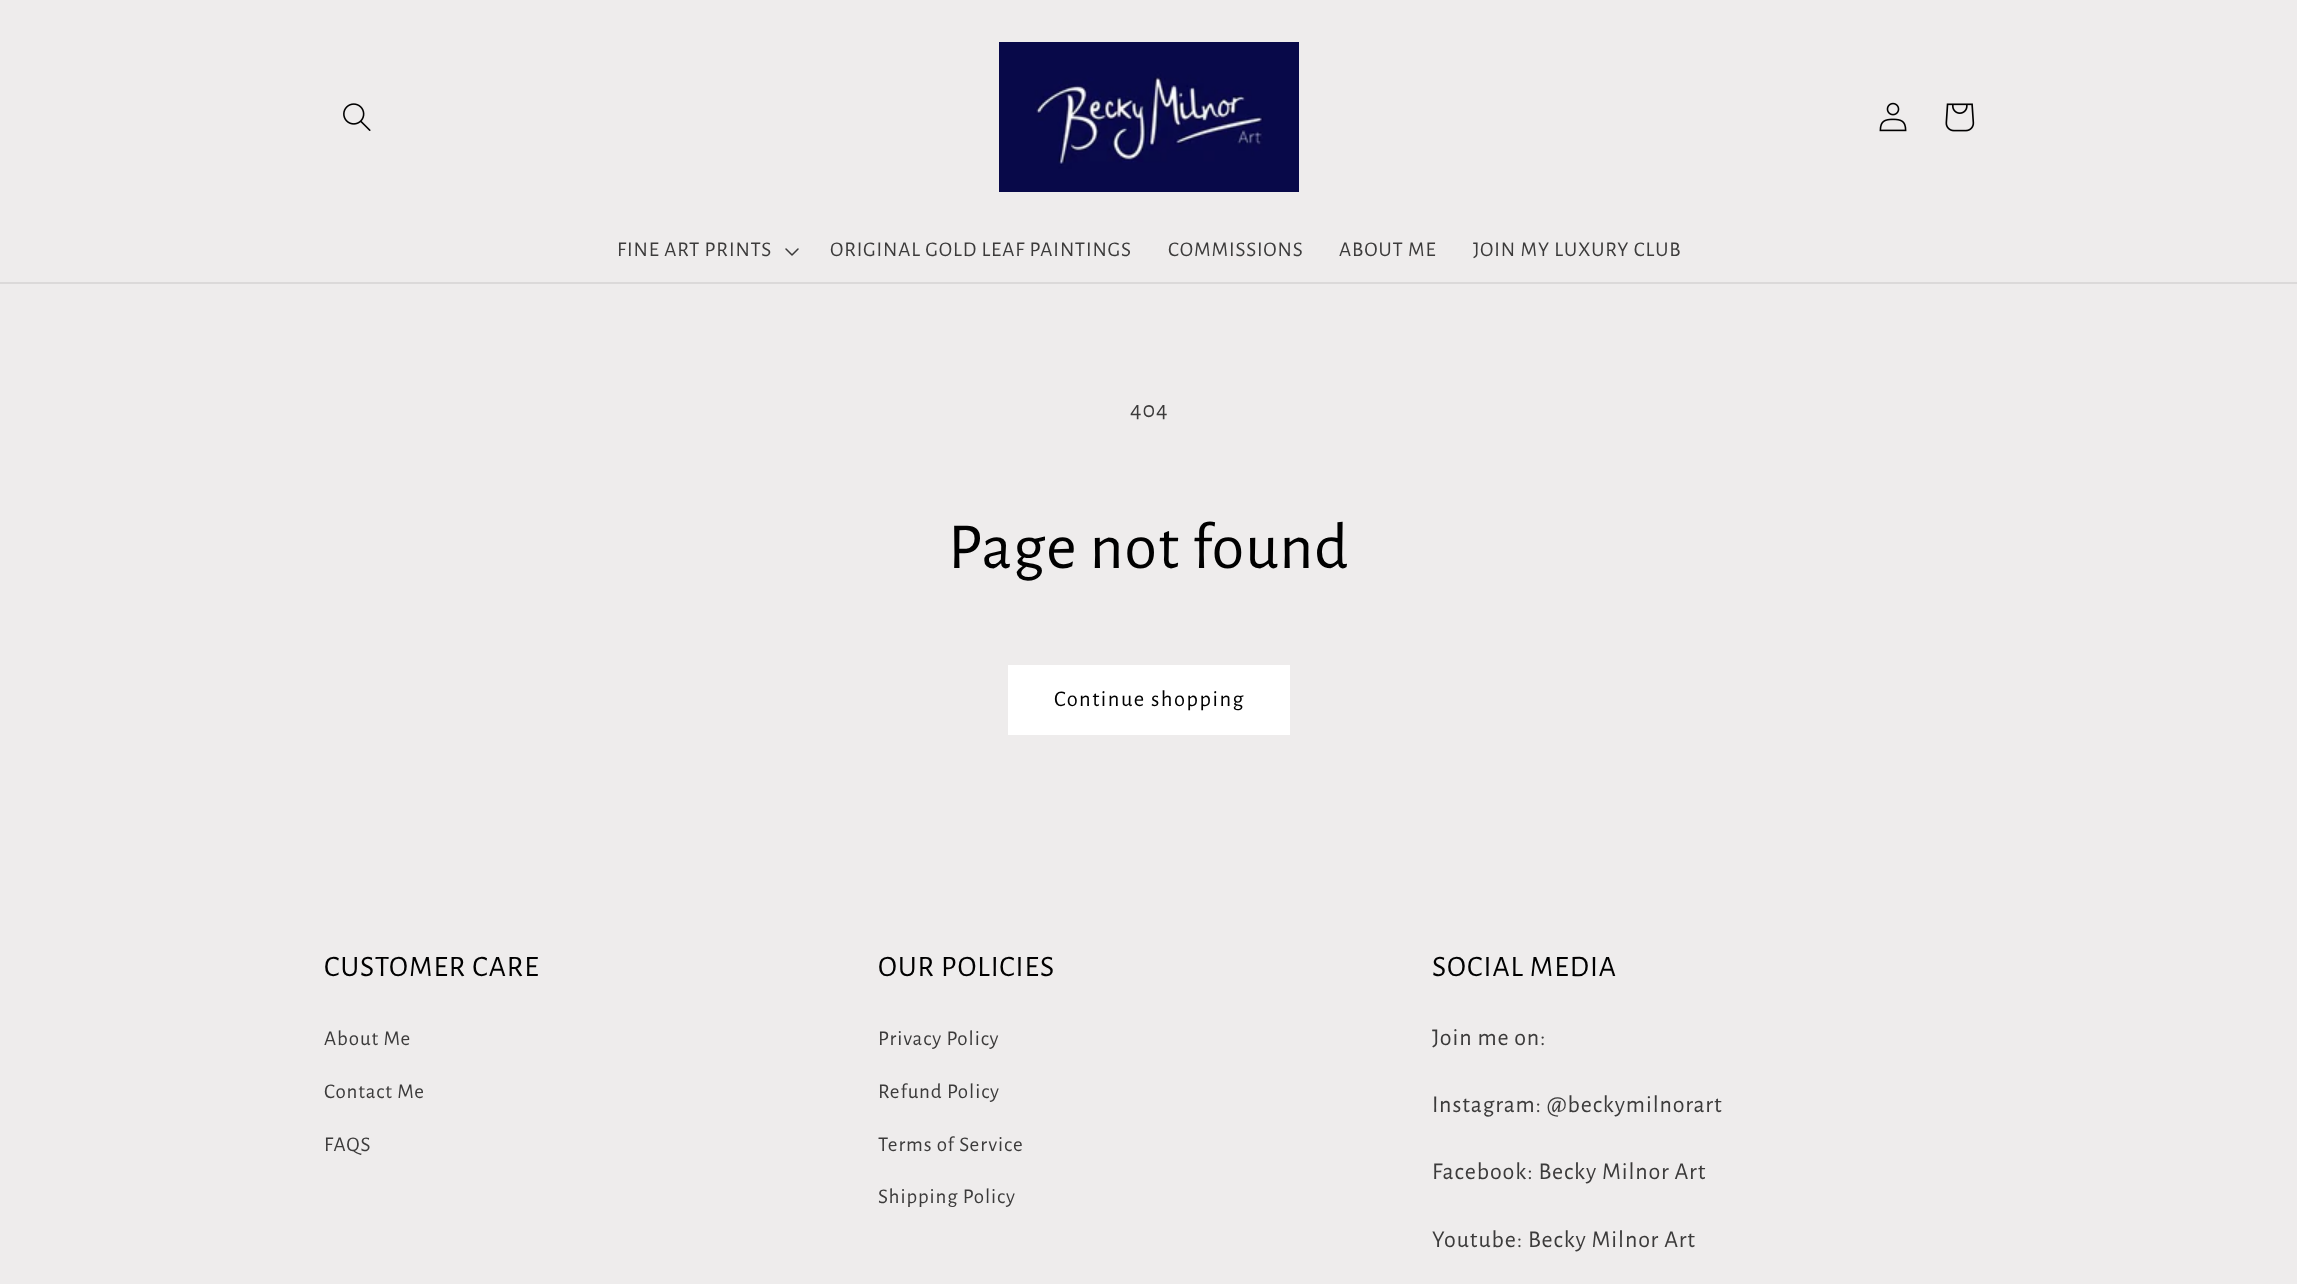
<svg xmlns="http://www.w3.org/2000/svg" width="2297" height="1284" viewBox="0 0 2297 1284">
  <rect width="100%" height="100%" fill="#eeecec"/>
  <path d="M0 282h2297v2H0z" fill="#dbd9d9"/>
  <image x="343" y="103" width="28" height="28" href="img/1.png"/>
  <image x="999" y="42" width="300" height="150" href="img/2.png"/>
  <image x="1879" y="102" width="28" height="30" href="img/3.png"/>
  <image x="1945" y="103" width="30" height="29" href="img/4.png"/>
  <image x="785" y="248" width="14" height="8" href="img/5.png"/>
  <path d="M1008 665h282v70H1008z" fill="#fff"/>
  <g font-family="Alegreya Sans" font-size="21" letter-spacing="0.9" fill="#3c3b3b">
    <text x="617" y="256">FINE ART PRINTS</text>
    <text x="830" y="256">ORIGINAL GOLD LEAF PAINTINGS</text>
    <text x="1168" y="256">COMMISSIONS</text>
    <text x="1339" y="256">ABOUT ME</text>
    <text x="1473" y="256">JOIN MY LUXURY CLUB</text>
  </g>
  <text x="1130" y="417" font-family="Alegreya Sans" font-size="24" letter-spacing="0.9" fill="#3c3b3b">404</text>
  <text x="948" y="568" font-family="Alegreya Sans" font-size="66" letter-spacing="1" fill="#000">Page not found</text>
  <text x="1054" y="706" font-family="Alegreya Sans" font-size="22.5" letter-spacing="1.5" fill="#000">Continue shopping</text>
  <text x="324" y="976" font-family="Alegreya Sans" font-size="29.75" letter-spacing="1" fill="#000">CUSTOMER CARE</text>
  <g font-family="Alegreya Sans" font-size="21" letter-spacing="0.9" fill="#3c3b3b">
    <text x="324" y="1045">About Me</text>
    <text x="324" y="1098">Contact Me</text>
    <text x="324" y="1151">FAQS</text>
  </g>
  <text x="878" y="976" font-family="Alegreya Sans" font-size="29.75" letter-spacing="1" fill="#000">OUR POLICIES</text>
  <g font-family="Alegreya Sans" font-size="21" letter-spacing="0.9" fill="#3c3b3b">
    <text x="878" y="1045">Privacy Policy</text>
    <text x="878" y="1098">Refund Policy</text>
    <text x="878" y="1151">Terms of Service</text>
    <text x="878" y="1203">Shipping Policy</text>
  </g>
  <text x="1432" y="976" font-family="Alegreya Sans" font-size="29.75" letter-spacing="1" fill="#000">SOCIAL MEDIA</text>
  <g font-family="Alegreya Sans" font-size="24" letter-spacing="0.9" fill="#3c3b3b">
    <text x="1432" y="1045">Join me on:</text>
    <text x="1432" y="1112">Instagram: @beckymilnorart</text>
    <text x="1432" y="1179">Facebook: Becky Milnor Art</text>
    <text x="1432" y="1247">Youtube: Becky Milnor Art</text>
  </g>
</svg>
